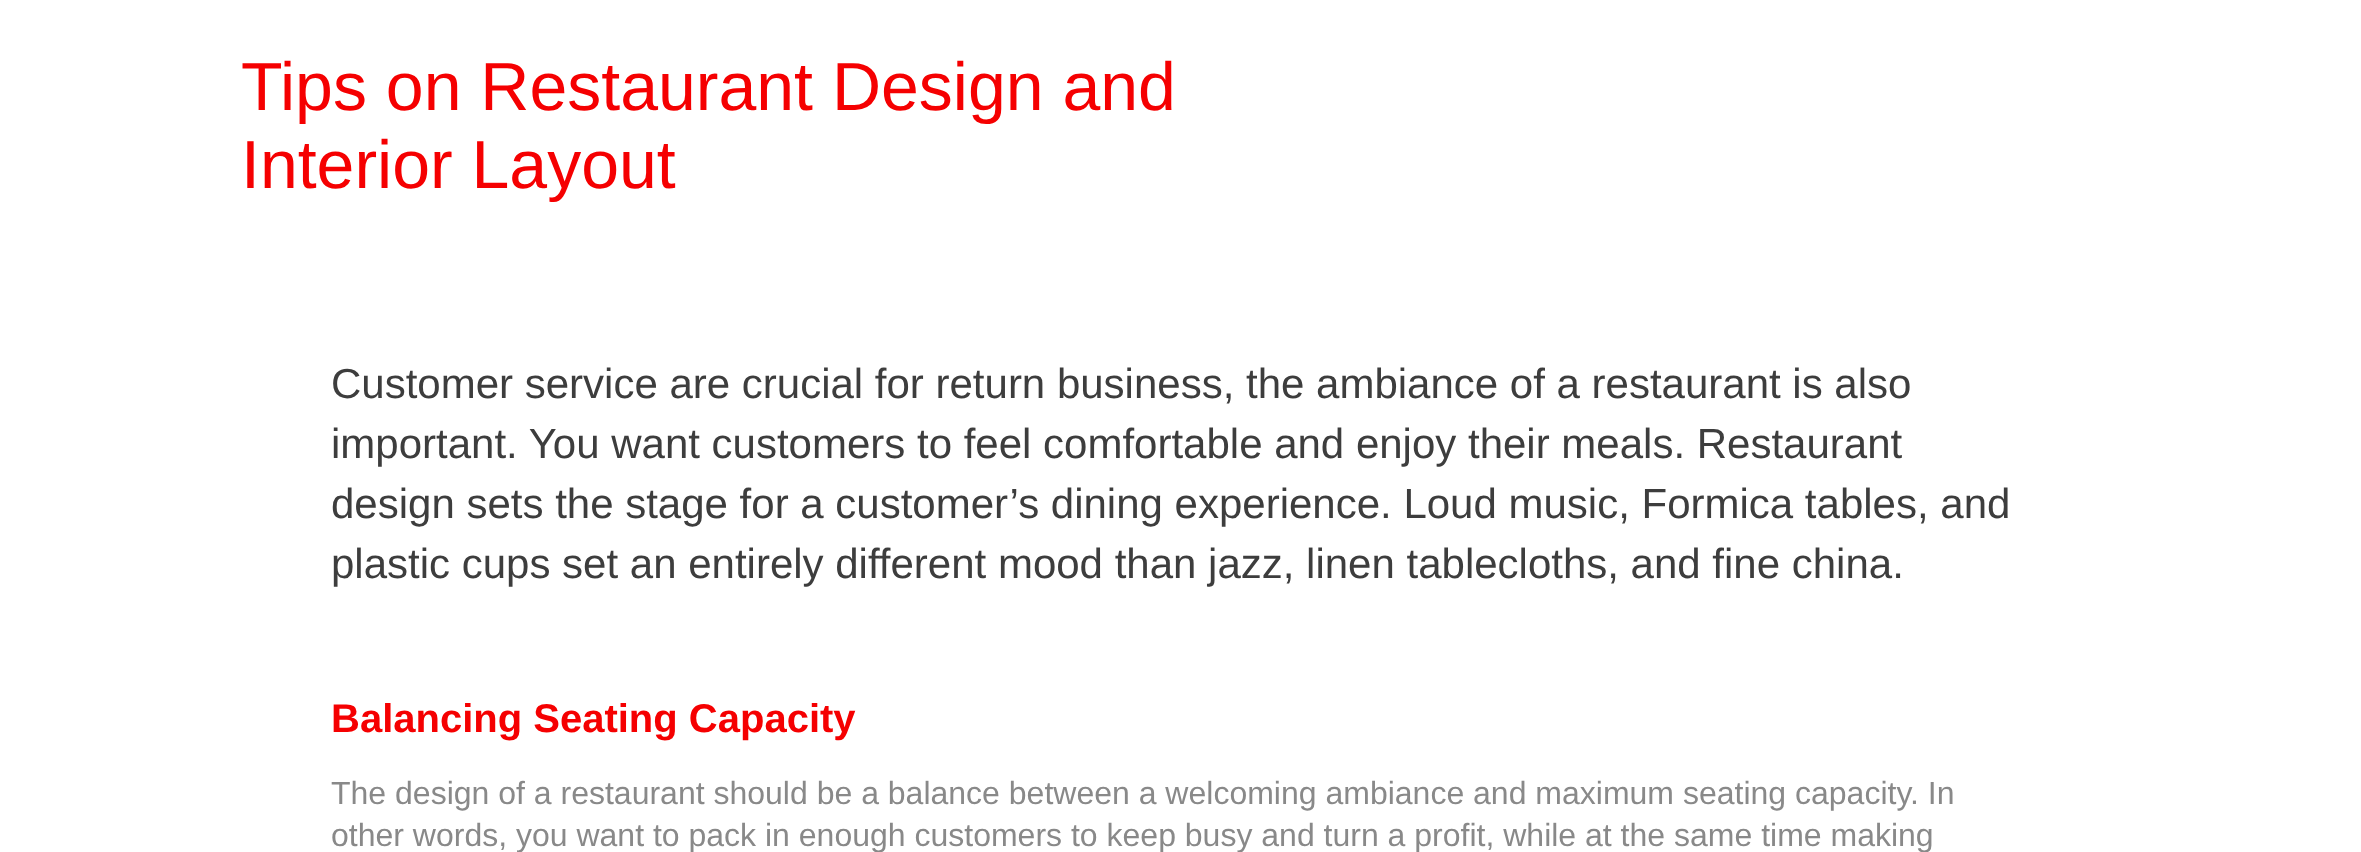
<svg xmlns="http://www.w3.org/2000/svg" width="2361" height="852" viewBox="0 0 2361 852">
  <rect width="100%" height="100%" fill="#fff"/>
  <g font-family="Liberation Sans" font-size="68" fill="#f50001">
    <text x="241" y="110">Tips on Restaurant Design and</text>
    <text x="241" y="188">Interior Layout</text>
  </g>
  <g font-family="Liberation Sans" font-size="42" fill="#3d3d3d">
    <text x="331" y="398">Customer service are crucial for return business, the ambiance of a restaurant is also</text>
    <text x="331" y="458">important. You want customers to feel comfortable and enjoy their meals. Restaurant</text>
    <text x="331" y="518">design sets the stage for a customer’s dining experience. Loud music, Formica tables, and</text>
    <text x="331" y="578">plastic cups set an entirely different mood than jazz, linen tablecloths, and fine china.</text>
  </g>
  <text x="331" y="732" font-family="Liberation Sans" font-size="40" font-weight="bold" fill="#f50001">Balancing Seating Capacity</text>
  <g font-family="Liberation Sans" font-size="32" fill="#898989">
    <text x="331" y="804">The design of a restaurant should be a balance between a welcoming ambiance and maximum seating capacity. In</text>
    <text x="331" y="846">other words, you want to pack in enough customers to keep busy and turn a profit, while at the same time making</text>
  </g>
</svg>
